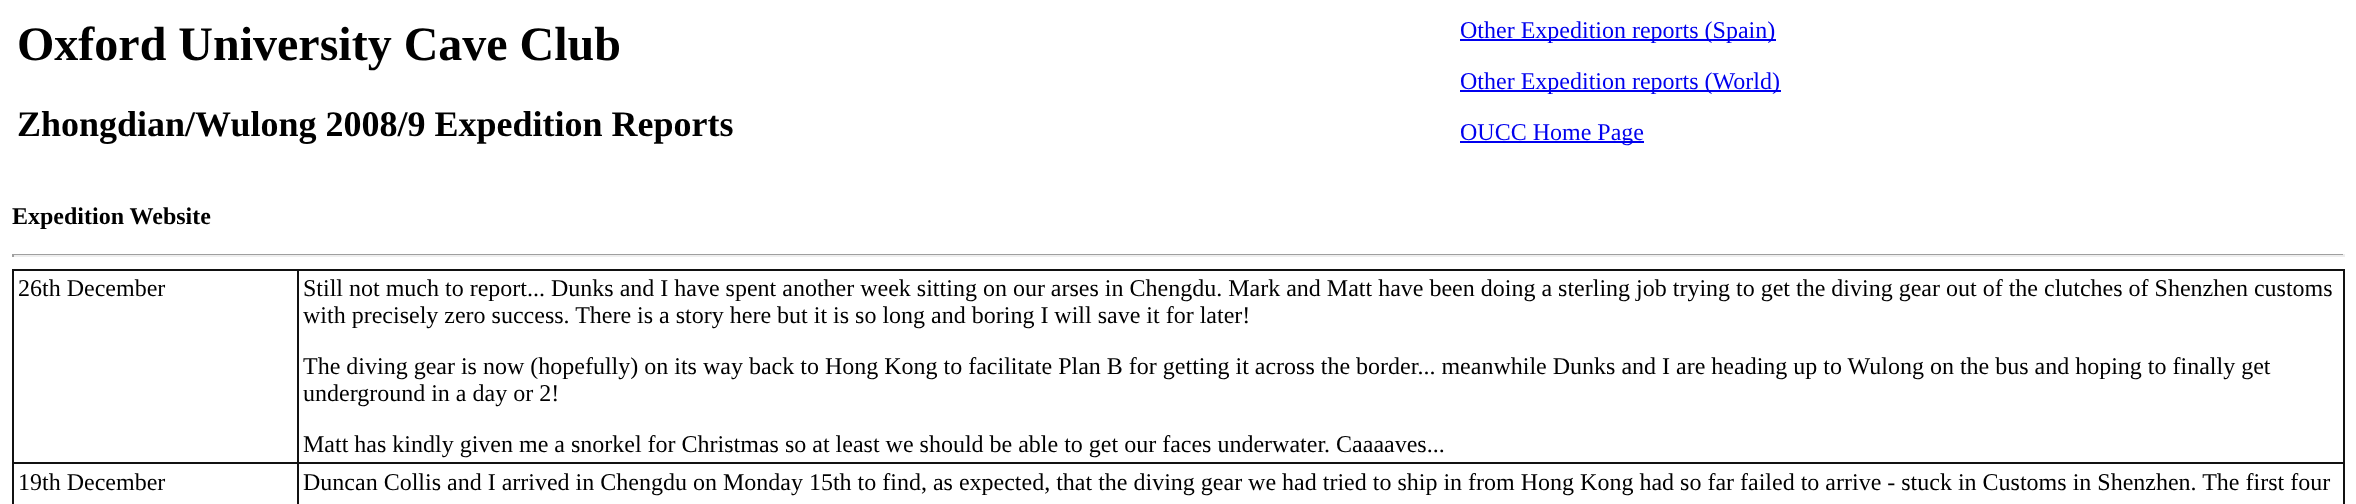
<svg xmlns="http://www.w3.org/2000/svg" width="2356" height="504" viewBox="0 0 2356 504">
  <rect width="100%" height="100%" fill="#fff"/>
  <path d="M1460 39h316v2H1460z" fill="#00e"/>
  <path d="M1460 90h321v2H1460z" fill="#00e"/>
  <path d="M1460 141h184v2H1460z" fill="#00e"/>
  <path d="M12 254h2333v1H12z" fill="#9f9f9f"/>
  <path d="M2343 254h2v3H2343z" fill="#eee"/>
  <path d="M12 255h2333v2H12z" fill="#eee"/>
  <path d="M12 254h2v3H12z" fill="#9f9f9f"/>
  <path d="M12 269h2333v2H12z" fill="#111"/>
  <path d="M2343 269h2v235H2343z" fill="#111"/>
  <path d="M12 269h2v235H12z" fill="#111"/>
  <path d="M297 462h2048v2H297z" fill="#111"/>
  <path d="M297 462h2v42H297z" fill="#111"/>
  <path d="M12 462h287v2H12z" fill="#111"/>
  <path d="M297 269h2v195H297z" fill="#111"/>
  <text x="17" y="60" font-family="Liberation Serif" font-size="48" font-weight="bold" fill="#000">Oxford University Cave Club</text>
  <text x="17" y="136" font-family="Liberation Serif" font-size="36" font-weight="bold" fill="#000">Zhongdian/Wulong 2008/9 Expedition Reports</text>
  <g font-family="Liberation Serif" font-size="24" fill="#00e">
    <text x="1460" y="38">Other Expedition reports (Spain)</text>
    <text x="1460" y="89">Other Expedition reports (World)</text>
    <text x="1460" y="140">OUCC Home Page</text>
  </g>
  <text x="12" y="224" font-family="Liberation Serif" font-size="24" font-weight="bold" fill="#000">Expedition Website</text>
  <g font-family="Liberation Serif" font-size="24" fill="#000">
    <text x="18" y="296">26th December</text>
    <text x="303" y="296">Still not much to report... Dunks and I have spent another week sitting on our arses in Chengdu. Mark and Matt have been doing a sterling job trying to get the diving gear out of the clutches of Shenzhen customs</text>
    <text x="303" y="323">with precisely zero success. There is a story here but it is so long and boring I will save it for later!</text>
    <text x="303" y="374">The diving gear is now (hopefully) on its way back to Hong Kong to facilitate Plan B for getting it across the border... meanwhile Dunks and I are heading up to Wulong on the bus and hoping to finally get</text>
    <text x="303" y="401">underground in a day or 2!</text>
    <text x="303" y="452">Matt has kindly given me a snorkel for Christmas so at least we should be able to get our faces underwater. Caaaaves...</text>
    <text x="18" y="490">19th December</text>
    <text x="303" y="490">Duncan Collis and I arrived in Chengdu on Monday 15th to find, as expected, that the diving gear we had tried to ship in from Hong Kong had so far failed to arrive - stuck in Customs in Shenzhen. The first four</text>
  </g>
</svg>
